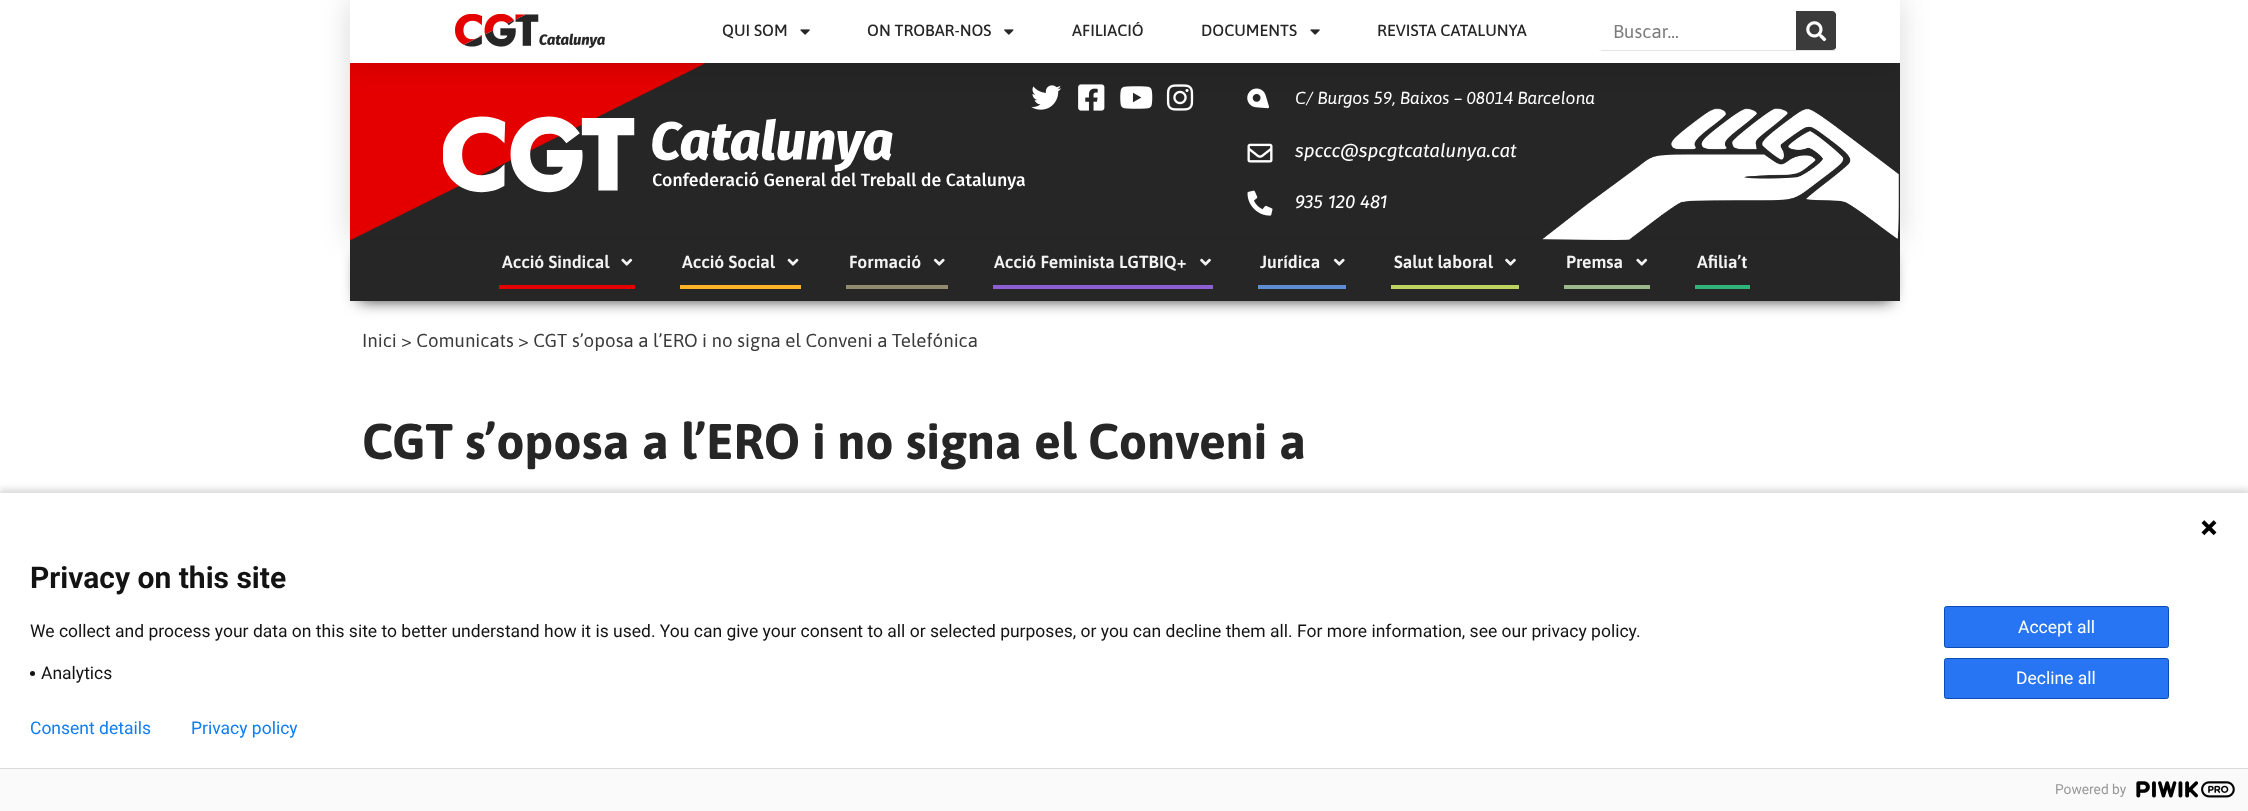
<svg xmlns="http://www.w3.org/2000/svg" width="2248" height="811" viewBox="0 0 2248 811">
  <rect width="100%" height="100%" fill="#fff"/>
  <path d="M350 63h1550v177H350z" fill="#00000026" filter="blur(15px)"/>
  <path d="M350 63h1550v177H350z" fill="#262626"/>
  <image x="350" y="63" width="356" height="177" href="img/5.png"/>
  <image x="1031" y="85" width="31" height="25" href="img/7.png"/>
  <image x="1078" y="84" width="27" height="27" href="img/8.png"/>
  <image x="1120" y="86" width="33" height="23" href="img/9.png"/>
  <image x="1166" y="84" width="28" height="27" href="img/10.png"/>
  <image x="1247" y="88" width="22" height="21" href="img/11.png"/>
  <image x="1542" y="108" width="357" height="132" href="img/14.png"/>
  <path d="M350 0h1550v63H350z" fill="#00000026" filter="blur(15px)"/>
  <path d="M350 0h1550v63H350z" fill="#fff"/>
  <image x="455" y="14" width="150" height="34" href="img/1.png"/>
  <image x="800" y="29" width="10" height="6" href="img/2.png"/>
  <image x="1004" y="29" width="10" height="6" href="img/3.png"/>
  <image x="1310" y="29" width="10" height="6" href="img/2.png"/>
  <rect x="1599" y="11" width="237" height="40" rx="4" fill="#f1f2f3"/>
  <path d="M1601 50h234v1H1601z" fill="#e4e4e4"/>
  <path d="M1602 11H1795C1795 12 1796 13 1796 14V48C1796 49 1795 50 1794 50H1602C1601 50 1600 50 1600 49L1599 48V14C1600 12 1601 11 1602 11Z" fill="#fff"/>
  <path d="M1796 50H1832C1834 50 1835 49 1836 48V14C1835 12 1834 11 1832 11H1796Z" fill="#3c3b3b"/>
  <image x="1806" y="21" width="21" height="21" href="img/4.png"/>
  <image x="443" y="116" width="582" height="77" href="img/6.png"/>
  <image x="1247" y="143" width="26" height="20" href="img/12.png"/>
  <image x="1247" y="190" width="26" height="26" href="img/13.png"/>
  <path d="M359 256h1532v44H359z" fill="#000000de" filter="blur(8px)"/>
  <path d="M350 240h1550v61H350z" fill="#262626"/>
  <path d="M499 285h136v4H499z" fill="#e50000"/>
  <image x="621" y="258" width="12" height="8" href="img/15.png"/>
  <path d="M680 285h121v4H680z" fill="#ffb228"/>
  <image x="787" y="258" width="12" height="8" href="img/16.png"/>
  <path d="M846 285h102v4H846z" fill="#918a6f"/>
  <image x="933" y="258" width="12" height="8" href="img/17.png"/>
  <path d="M993 285h220v4H993z" fill="#8d5fd3"/>
  <image x="1200" y="258" width="11" height="8" href="img/18.png"/>
  <path d="M1258 285h88v4H1258z" fill="#5f8dd3"/>
  <image x="1333" y="258" width="12" height="8" href="img/17.png"/>
  <path d="M1391 285h128v4H1391z" fill="#bcd35f"/>
  <image x="1505" y="258" width="11" height="8" href="img/18.png"/>
  <path d="M1564 285h86v4H1564z" fill="#9bb88d"/>
  <image x="1636" y="258" width="12" height="8" href="img/15.png"/>
  <path d="M1695 285h55v4H1695z" fill="#31b379"/>
  <path d="M-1 489h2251v321H-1z" fill="#00000024" filter="blur(3px)"/>
  <path d="M0 493h2248v275H0z" fill="#fff"/>
  <image x="2201" y="520" width="16" height="16" href="img/19.png"/>
  <circle cx="32.5" cy="673.5" r="2.5" fill="#131313"/>
  <rect x="1944.5" y="606.5" width="224" height="41" rx="2" fill="#2775f2" stroke="#0b4bb3"/>
  <rect x="1944.5" y="658.5" width="224" height="40" rx="2" fill="#2775f2" stroke="#0b4bb3"/>
  <path d="M0 769h2248v42H0z" fill="#fafafa"/>
  <path d="M0 768h2248v1H0z" fill="#ddd"/>
  <image x="2136" y="781" width="99" height="17" href="img/20.png"/>
  <g font-family="Asap" font-size="16.25" font-weight="500" fill="#262626">
    <text x="722" y="36">QUI SOM</text>
    <text x="867" y="36">ON TROBAR-NOS</text>
    <text x="1072" y="36">AFILIACIÓ</text>
    <text x="1201" y="36">DOCUMENTS</text>
    <text x="1377" y="36">REVISTA CATALUNYA</text>
  </g>
  <text x="1613" y="38" font-family="Asap" font-size="18.75" fill="#7d7d7d">Buscar...</text>
  <text x="1295" y="104" font-family="Asap" font-size="17.4" font-style="italic" fill="#fff">C/ Burgos 59, Baixos – 08014 Barcelona</text>
  <g font-family="Fira Sans" font-size="18.75" font-style="italic" fill="#fff">
    <text x="1295" y="157">spccc@spcgtcatalunya.cat</text>
    <text x="1295" y="208">935 120 481</text>
  </g>
  <g font-family="Asap" font-size="17.5" font-weight="600" fill="#f3f3f3">
    <text x="502" y="268">Acció Sindical</text>
    <text x="682" y="268">Acció Social</text>
    <text x="849" y="268">Formació</text>
    <text x="994" y="268">Acció Feminista LGTBIQ+</text>
    <text x="1260" y="268">Jurídica</text>
    <text x="1394" y="268">Salut laboral</text>
    <text x="1566" y="268">Premsa</text>
    <text x="1697" y="268">Afilia’t</text>
  </g>
  <text x="362" y="347" font-family="Asap" font-size="18.75" fill="#3c3b3b">Inici &gt; Comunicats &gt; CGT s’oposa a l’ERO i no signa el Conveni a Telefónica</text>
  <text x="362" y="459" font-family="Asap" font-size="50" font-weight="bold" fill="#262626">CGT s’oposa a l’ERO i no signa el Conveni a</text>
  <text x="30" y="588" font-family="Roboto" font-size="30" font-weight="bold" fill="#131313">Privacy on this site</text>
  <g font-family="Roboto" font-size="17.5" fill="#131313">
    <text x="30" y="637">We collect and process your data on this site to better understand how it is used. You can give your consent to all or selected purposes, or you can decline them all. For more information, see our privacy policy.</text>
    <text x="41" y="679">Analytics</text>
  </g>
  <g font-family="Roboto" font-size="17.5" fill="#fff">
    <text x="2018" y="633">Accept all</text>
    <text x="2016" y="684">Decline all</text>
  </g>
  <g font-family="Roboto" font-size="17.5" fill="#107ef1">
    <text x="30" y="734">Consent details</text>
    <text x="191" y="734">Privacy policy</text>
  </g>
  <text x="2055" y="794" font-family="Roboto" font-size="13.75" fill="#999">Powered by</text>
</svg>
